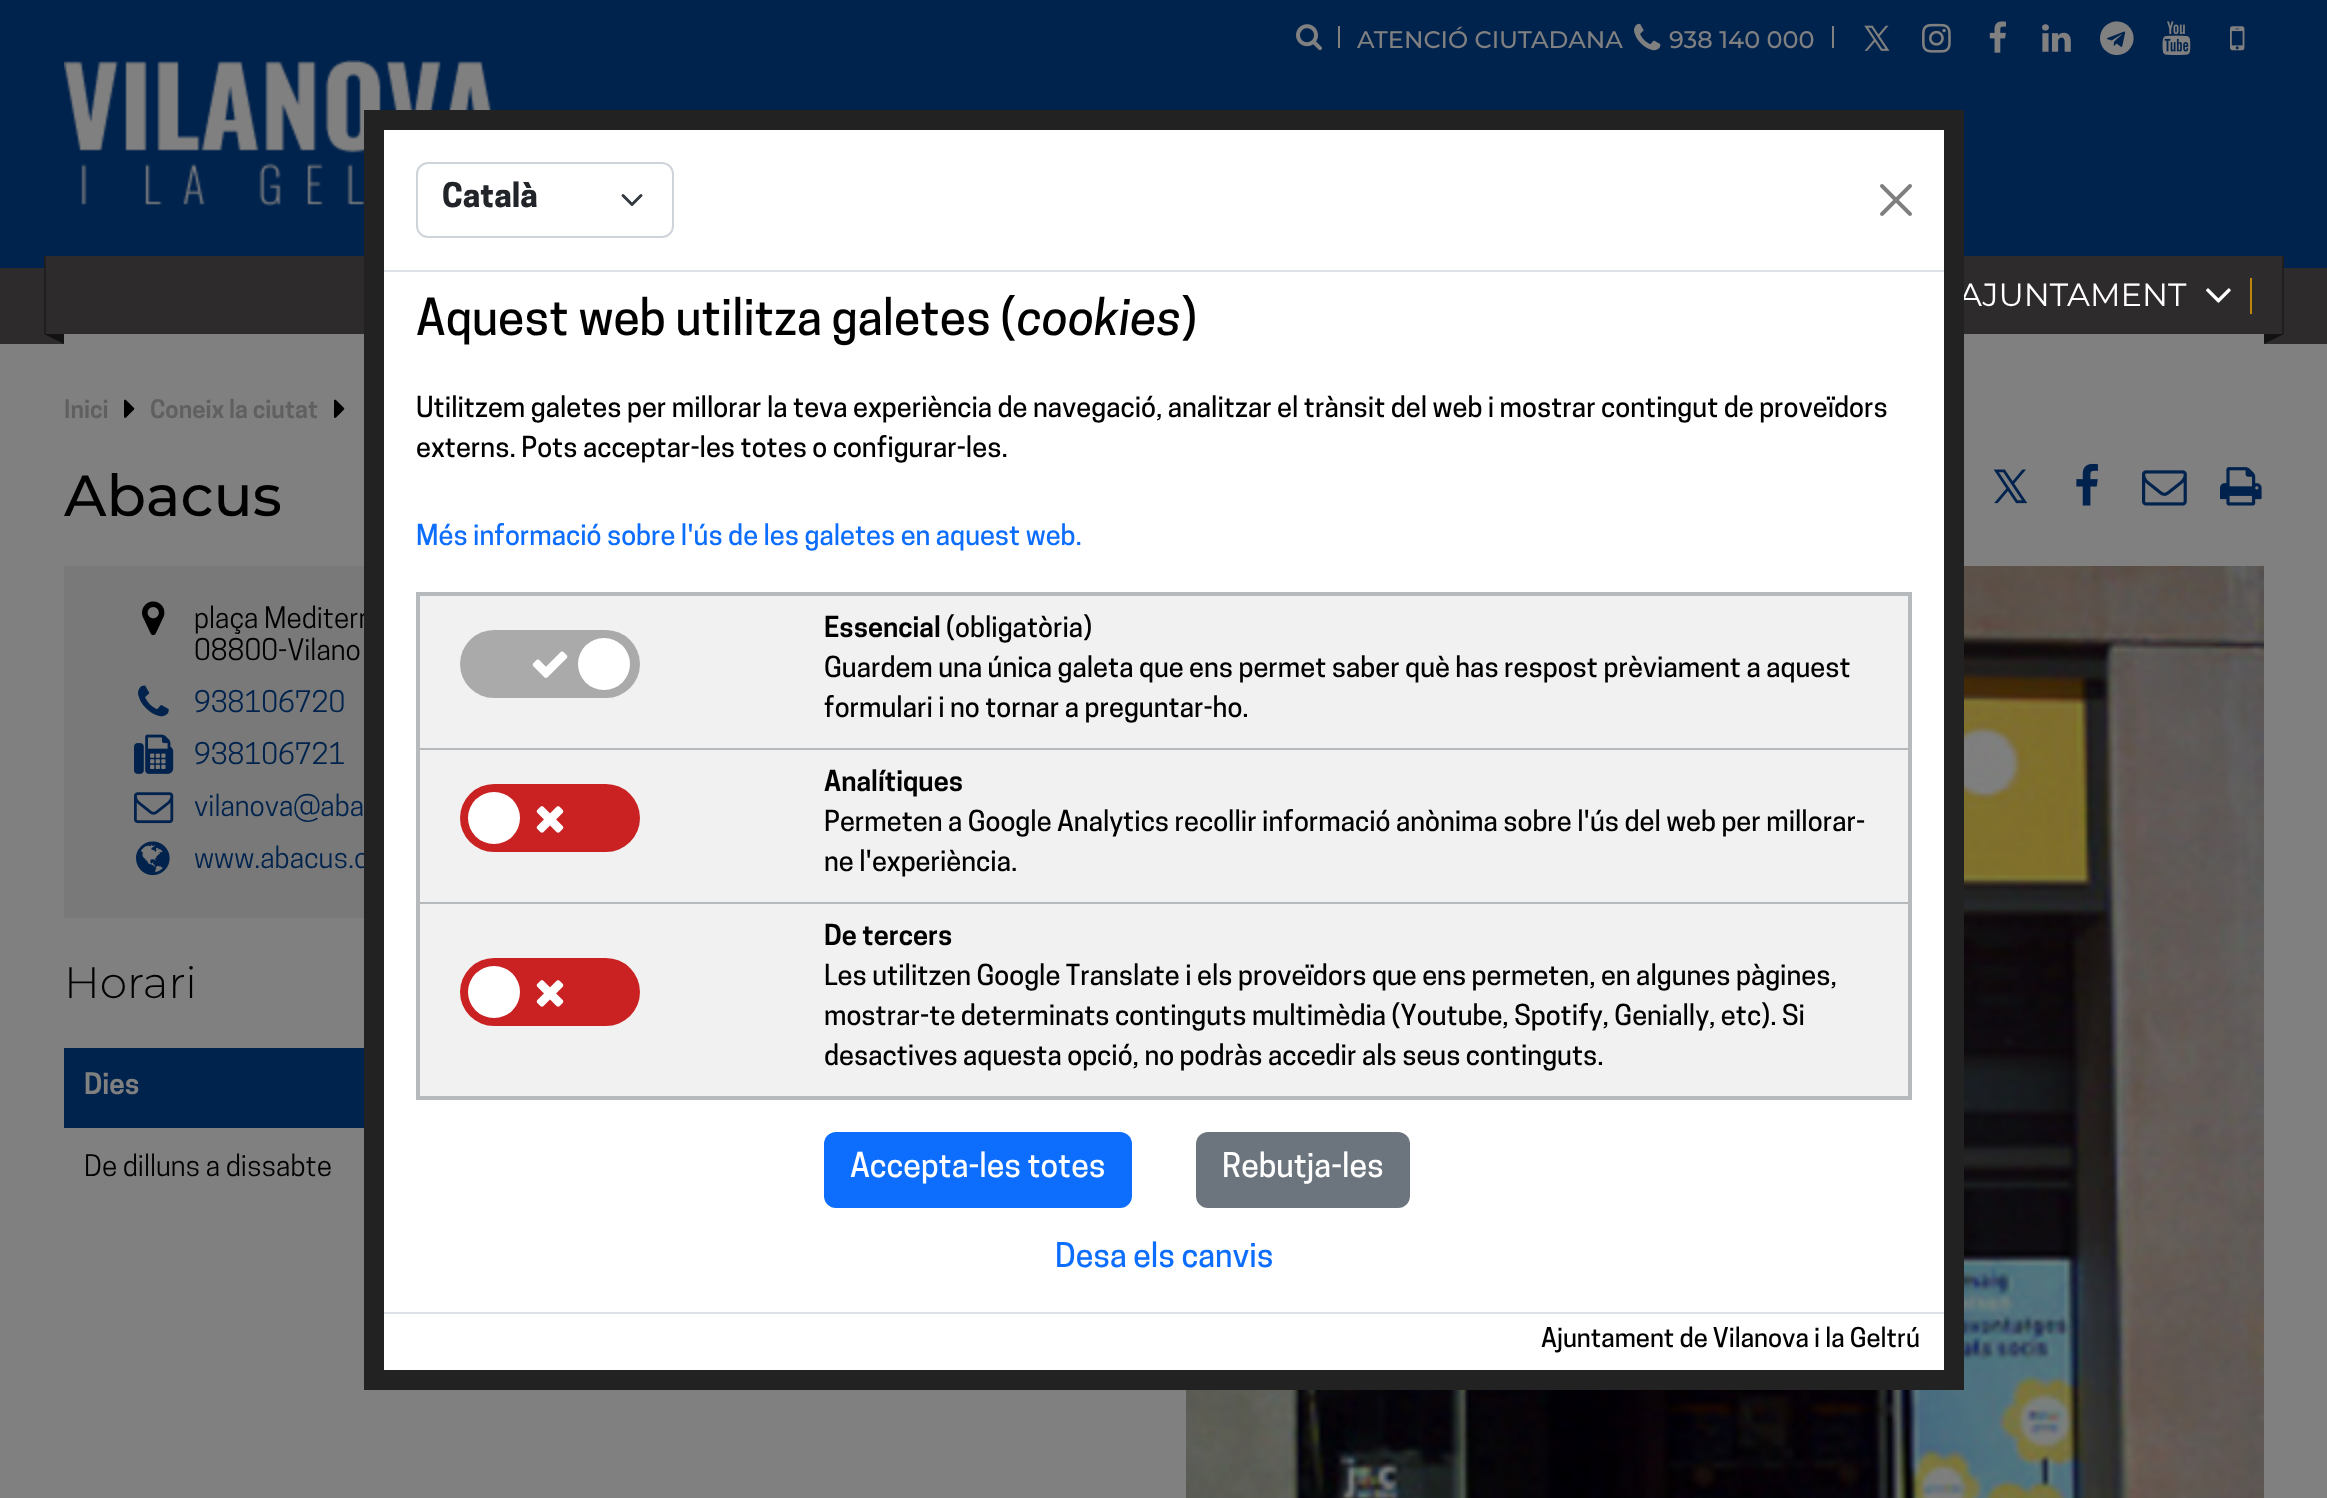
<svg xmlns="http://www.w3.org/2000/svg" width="2327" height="1498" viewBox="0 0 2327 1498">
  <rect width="100%" height="100%" fill="#808080"/>
  <path d="M0 0h2327v268H0z" fill="#00234d"/>
  <image x="1296" y="24" width="26" height="27" href="img/1.png"/>
  <path d="M1338 26h2v22H1338z" fill="#808080"/>
  <image x="1634" y="23" width="27" height="28" href="img/2.png"/>
  <path d="M1832 26h2v22H1832z" fill="#808080"/>
  <image x="1864" y="25" width="26" height="26" href="img/3.png"/>
  <image x="1922" y="23" width="29" height="30" href="img/4.png"/>
  <image x="1989" y="21" width="17" height="32" href="img/5.png"/>
  <image x="2042" y="24" width="29" height="28" href="img/6.png"/>
  <image x="2100" y="21" width="34" height="34" href="img/7.png"/>
  <image x="2162" y="21" width="29" height="35" href="img/8.png"/>
  <image x="2230" y="26" width="15" height="25" href="img/9.png"/>
  <image x="64" y="60" width="428" height="146" href="img/10.png"/>
  <path d="M46 256h2236v78H46z" fill="#2d2b2b"/>
  <path d="M0 268h64v76H0z" fill="#2d2b2b"/>
  <path d="M2282 268h45v38H2282z" fill="#2d2b2b"/>
  <path d="M2264 306h63v38H2264z" fill="#2d2b2b"/>
  <path d="M2282 256h2v78H2282z" fill="#201f1f"/>
  <path d="M44 256h2v78H44z" fill="#201f1f"/>
  <image x="2206" y="288" width="25" height="15" href="img/14.png"/>
  <path d="M2250 278h2v36H2250z" fill="#bb860a"/>
  <path d="M44 334H64V344Z" fill="#131212"/>
  <path d="M2264 334H2284L2264 344Z" fill="#131212"/>
  <image x="124" y="399" width="11" height="19" href="img/15.png"/>
  <image x="334" y="399" width="11" height="19" href="img/15.png"/>
  <image x="1993" y="469" width="35" height="35" href="img/16.png"/>
  <image x="2076" y="463" width="22" height="43" href="img/17.png"/>
  <image x="2142" y="470" width="45" height="36" href="img/18.png"/>
  <image x="2220" y="467" width="42" height="39" href="img/19.png"/>
  <path d="M64 566h300v352H64z" fill="#797979"/>
  <image x="142" y="601" width="23" height="35" href="img/20.png"/>
  <image x="138" y="685" width="31" height="32" href="img/21.png"/>
  <image x="134" y="734" width="40" height="40" href="img/22.png"/>
  <image x="134" y="792" width="40" height="32" href="img/23.png"/>
  <image x="136" y="841" width="34" height="35" href="img/24.png"/>
  <path d="M64 1048h300v80H64z" fill="#00234d"/>
  <image x="1186" y="566" width="1078" height="932" href="img/25.png"/>
  <g font-family="Montserrat" font-size="24" font-weight="500" fill="#808080">
    <text x="1357" y="48">ATENCIÓ CIUTADANA</text>
    <text x="1669" y="48">938 140 000</text>
  </g>
  <text x="1959" y="306" font-family="Montserrat" font-size="32" fill="#fff">AJUNTAMENT</text>
  <g font-family="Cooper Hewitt" font-size="24" font-weight="600" fill="#606060">
    <text x="64" y="418">Inici</text>
    <text x="150" y="418">Coneix la ciutat</text>
  </g>
  <text x="64" y="516" font-family="Montserrat" font-size="58" font-weight="500" fill="#000">Abacus</text>
  <g font-family="Cooper Hewitt" font-size="28" fill="#000">
    <text x="194" y="628">plaça Mediterr</text>
    <text x="194" y="660">08800-Vilano</text>
  </g>
  <g font-family="Cooper Hewitt" font-size="28" fill="#00234d">
    <text x="194" y="712">938106720</text>
    <text x="194" y="764">938106721</text>
    <text x="194" y="816">vilanova@aba</text>
    <text x="194" y="868">www.abacus.c</text>
  </g>
  <path d="M374 120h1580v1260H374z" fill="#fff" stroke="#222" stroke-width="20"/>
  <path d="M418 594h1492v504H418z" fill="#f1f1f1" stroke="#b6babd" stroke-width="4"/>
  <rect x="460" y="958" width="180" height="68" rx="34" fill="#ca2222"/>
  <image x="536" y="980" width="28" height="27" href="img/13.png"/>
  <circle cx="494" cy="992" r="26" fill="#fff"/>
  <rect x="460" y="784" width="180" height="68" rx="34" fill="#ca2222"/>
  <image x="536" y="806" width="28" height="27" href="img/13.png"/>
  <circle cx="494" cy="818" r="26" fill="#fff"/>
  <rect x="460" y="630" width="180" height="68" rx="34" fill="#aaa"/>
  <image x="532" y="651" width="36" height="27" href="img/12.png"/>
  <circle cx="604" cy="664" r="26" fill="#fff"/>
  <text x="1055" y="1267" font-family="Cooper Hewitt" font-size="32" font-weight="500" fill="#0d6efd">Desa els canvis</text>
  <rect x="1196" y="1132" width="214" height="76" rx="12" fill="#6c757d"/>
  <text x="1222" y="1177" font-family="Cooper Hewitt" font-size="32" font-weight="500" fill="#fff">Rebutja-les</text>
  <rect x="824" y="1132" width="308" height="76" rx="12" fill="#0d6efd"/>
  <text x="850" y="1177" font-family="Cooper Hewitt" font-size="32" font-weight="500" fill="#fff">Accepta-les totes</text>
  <g font-family="Cooper Hewitt" font-size="27.2" font-weight="500" fill="#000">
    <text x="824" y="1065">desactives aquesta opció, no podràs accedir als seus continguts.</text>
    <text x="1782" y="1025">Si</text>
    <text x="824" y="1025">mostrar-te determinats continguts multimèdia (Youtube, Spotify, Genially, etc).</text>
    <text x="824" y="985">Les utilitzen Google Translate i els proveïdors que ens permeten, en algunes pàgines,</text>
  </g>
  <text x="824" y="945" font-family="Cooper Hewitt" font-size="27.2" font-weight="600" fill="#000">De tercers</text>
  <g font-family="Cooper Hewitt" font-size="27.2" font-weight="500" fill="#000">
    <text x="824" y="871">ne l'experiència.</text>
    <text x="824" y="831">Permeten a Google Analytics recollir informació anònima sobre l'ús del web per millorar-</text>
  </g>
  <text x="824" y="791" font-family="Cooper Hewitt" font-size="27.2" font-weight="600" fill="#000">Analítiques</text>
  <g font-family="Cooper Hewitt" font-size="27.2" font-weight="500" fill="#000">
    <text x="824" y="717">formulari i no tornar a preguntar-ho.</text>
    <text x="824" y="677">Guardem una única galeta que ens permet saber què has respost prèviament a aquest</text>
    <text x="946" y="637">(obligatòria)</text>
  </g>
  <text x="824" y="637" font-family="Cooper Hewitt" font-size="27.2" font-weight="600" fill="#000">Essencial</text>
  <text x="416" y="545" font-family="Cooper Hewitt" font-size="27.2" font-weight="500" fill="#0d6efd">Més informació sobre l'ús de les galetes en aquest web.</text>
  <g font-family="Cooper Hewitt" font-size="27.2" font-weight="500" fill="#000">
    <text x="416" y="457">externs. Pots acceptar-les totes o configurar-les.</text>
    <text x="416" y="417">Utilitzem galetes per millorar la teva experiència de navegació, analitzar el trànsit del web i mostrar contingut de proveïdors</text>
  </g>
  <text x="1181" y="335" font-family="Cooper Hewitt" font-size="47.75" font-weight="500" fill="#000">)</text>
  <text x="1017" y="335" font-family="Cooper Hewitt" font-size="47.75" font-weight="500" font-style="italic" fill="#000">cookies</text>
  <text x="416" y="335" font-family="Cooper Hewitt" font-size="47.75" font-weight="500" fill="#000">Aquest web utilitza galetes (</text>
  <path d="M420 902h1488v2H420z" fill="#b6babd"/>
  <path d="M420 748h1488v2H420z" fill="#b6babd"/>
  <image x="1880" y="184" width="32" height="32" href="img/11.png"/>
  <text x="1541" y="1347" font-family="Cooper Hewitt" font-size="25.6" font-weight="500" fill="#000">Ajuntament de Vilanova i la Geltrú</text>
  <path d="M384 1312h1560v2H384z" fill="#dee2e6"/>
  <path d="M623 195.5L632 204.5L641 195.5" fill="none" stroke="#343a40" stroke-width="3" stroke-linecap="round" stroke-linejoin="round"/>
  <rect x="417" y="163" width="256" height="74" rx="11" fill="none" stroke="#ced4da" stroke-width="2"/>
  <text x="442" y="207" font-family="Cooper Hewitt" font-size="32" font-weight="bold" fill="#212529">Català</text>
  <path d="M384 270h1560v2H384z" fill="#dee2e6"/>
  <text x="64" y="998" font-family="Montserrat" font-size="44" font-weight="300" fill="#000">Horari</text>
  <text x="84" y="1094" font-family="Cooper Hewitt" font-size="28" font-weight="600" fill="#808080">Dies</text>
  <text x="84" y="1176" font-family="Cooper Hewitt" font-size="28" fill="#000">De dilluns a dissabte</text>
</svg>
